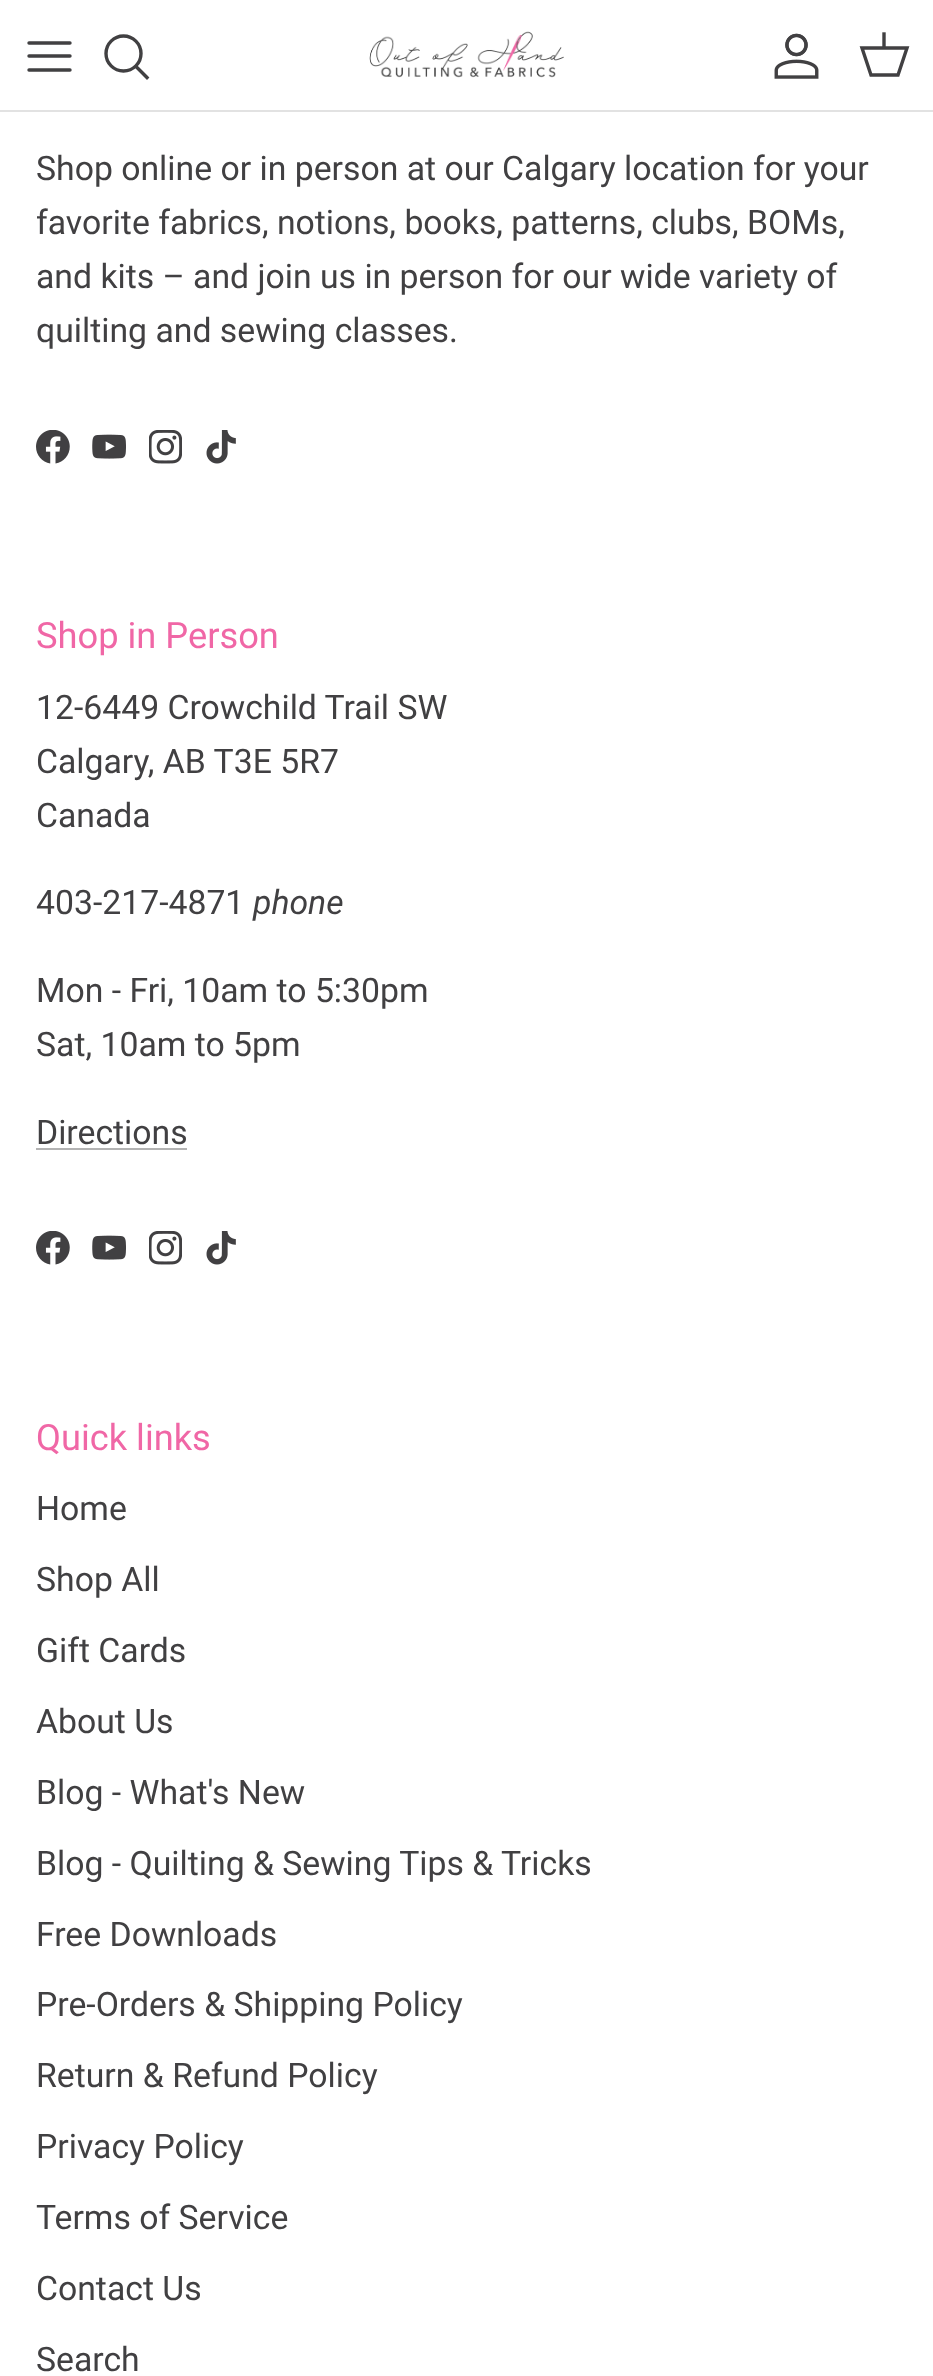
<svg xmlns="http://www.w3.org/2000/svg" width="933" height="2376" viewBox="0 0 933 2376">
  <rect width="100%" height="100%" fill="#fff"/>
  <path d="M0 110h933v2H0z" fill="#e2e2e2"/>
  <path d="M29 56H70M29 43H70M29 70H70" fill="none" stroke="#414042" stroke-width="3.4" stroke-linecap="round" stroke-linejoin="round"/>
  <circle cx="123.5" cy="53.5" r="17.5" fill="none" stroke="#414042" stroke-width="3.4"/>
  <path d="M137 67.5L147 77.5" fill="none" stroke="#414042" stroke-width="3.4" stroke-linecap="square"/>
  <image x="369" y="31" width="195" height="47" href="img/1.png"/>
  <image x="774" y="33" width="45" height="46" href="img/2.png"/>
  <path d="M862 48H907L898 75H871Z" fill="none" stroke="#414042" stroke-width="3.4"/>
  <path d="M884 47V34" fill="none" stroke="#414042" stroke-width="3.4" stroke-linecap="square"/>
  <image x="36" y="430" width="34" height="34" href="img/3.png"/>
  <image x="92" y="434" width="34" height="25" href="img/4.png"/>
  <image x="149" y="430" width="33" height="34" href="img/5.png"/>
  <image x="206" y="430" width="30" height="34" href="img/6.png"/>
  <path d="M36 1148h151v2H36z" fill="#b3b3b3"/>
  <image x="36" y="1231" width="34" height="34" href="img/3.png"/>
  <image x="92" y="1235" width="34" height="25" href="img/4.png"/>
  <image x="149" y="1231" width="33" height="34" href="img/5.png"/>
  <image x="206" y="1231" width="30" height="34" href="img/6.png"/>
  <g font-family="Roboto" font-size="33.75" fill="#414042">
    <text x="36" y="180">Shop online or in person at our Calgary location for your</text>
    <text x="36" y="234">favorite fabrics, notions, books, patterns, clubs, BOMs,</text>
    <text x="36" y="288">and kits – and join us in person for our wide variety of</text>
    <text x="36" y="342">quilting and sewing classes.</text>
  </g>
  <text x="36" y="648" font-family="Roboto" font-size="36.25" fill="#f067a6">Shop in Person</text>
  <g font-family="Roboto" font-size="33.75" fill="#414042">
    <text x="36" y="719">12-6449 Crowchild Trail SW</text>
    <text x="36" y="773">Calgary, AB T3E 5R7</text>
    <text x="36" y="827">Canada</text>
    <text x="36" y="914">403-217-4871</text>
  </g>
  <text x="253" y="914" font-family="Roboto" font-size="33.75" font-style="italic" fill="#414042">phone</text>
  <g font-family="Roboto" font-size="33.75" fill="#414042">
    <text x="36" y="1002">Mon - Fri, 10am to 5:30pm</text>
    <text x="36" y="1056">Sat, 10am to 5pm</text>
    <text x="36" y="1144">Directions</text>
  </g>
  <text x="36" y="1450" font-family="Roboto" font-size="36.25" fill="#f067a6">Quick links</text>
  <g font-family="Roboto" font-size="33.75" fill="#414042">
    <text x="36" y="1520">Home</text>
    <text x="36" y="1591">Shop All</text>
    <text x="36" y="1662">Gift Cards</text>
    <text x="36" y="1733">About Us</text>
    <text x="36" y="1804">Blog - What's New</text>
    <text x="36" y="1875">Blog - Quilting &amp; Sewing Tips &amp; Tricks</text>
    <text x="36" y="1946">Free Downloads</text>
    <text x="36" y="2016">Pre-Orders &amp; Shipping Policy</text>
    <text x="36" y="2087">Return &amp; Refund Policy</text>
    <text x="36" y="2158">Privacy Policy</text>
    <text x="36" y="2229">Terms of Service</text>
    <text x="36" y="2300">Contact Us</text>
    <text x="36" y="2371">Search</text>
  </g>
</svg>
